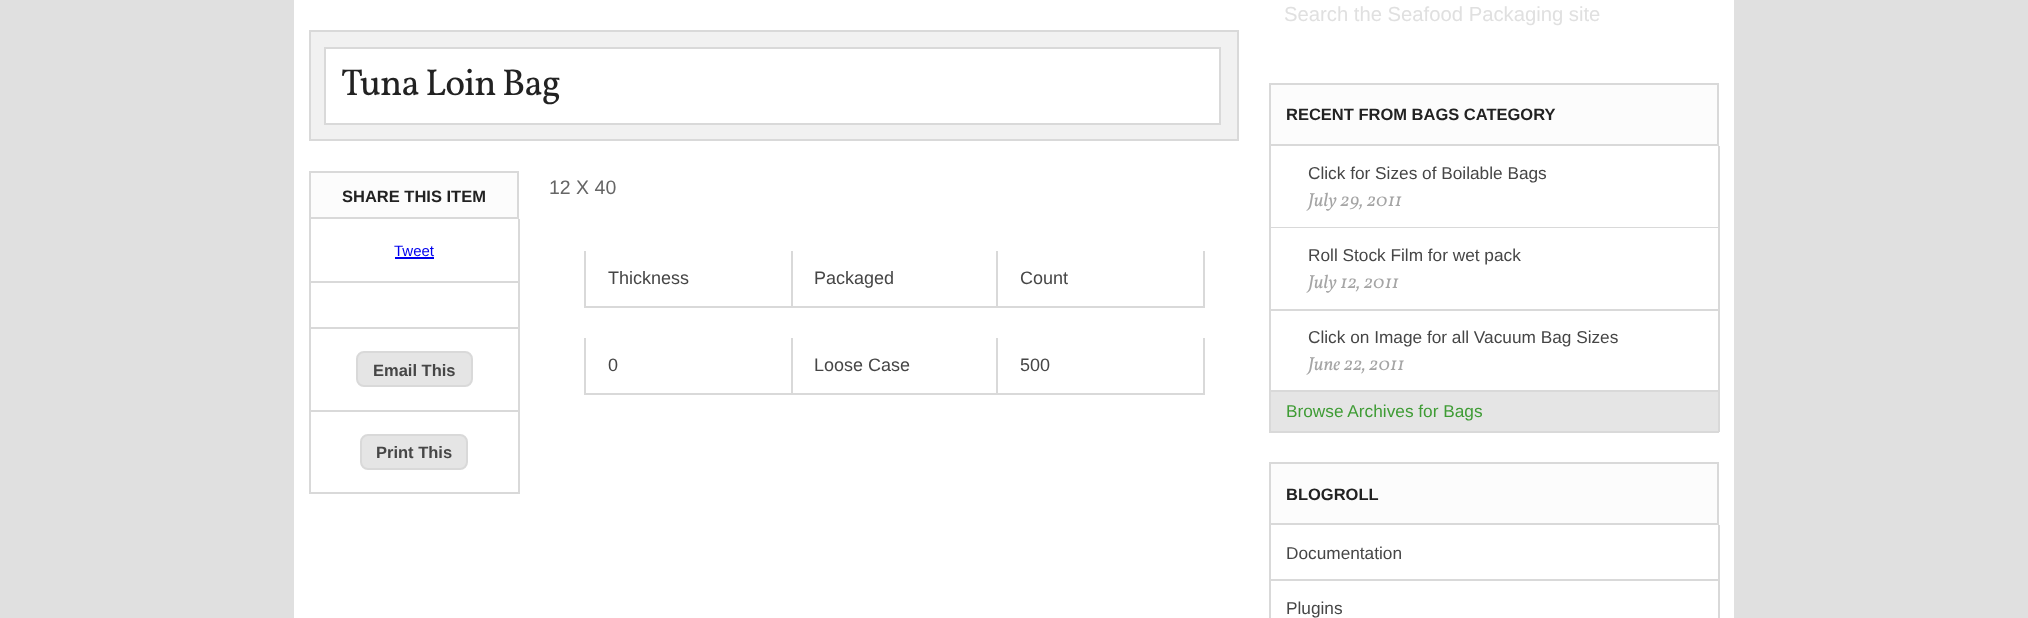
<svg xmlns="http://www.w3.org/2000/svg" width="2028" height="618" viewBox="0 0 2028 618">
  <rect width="100%" height="100%" fill="#e0e0e0"/>
  <path d="M294 0h1440v618H294z" fill="#fff"/>
  <path d="M310 31h928v109H310z" fill="#f1f1f1" stroke="#d9d9d9" stroke-width="2"/>
  <path d="M325 48h895v76H325z" fill="#fff" stroke="#d9d9d9" stroke-width="2"/>
  <path d="M310 172h208v46H310z" fill="#fcfcfc" stroke="#d9d9d9" stroke-width="2"/>
  <path d="M518 219h2v63H518z" fill="#d9d9d9"/>
  <path d="M309 281h210v2H309z" fill="#d9d9d9"/>
  <path d="M309 219h2v63H309z" fill="#d9d9d9"/>
  <path d="M395 257h39v2H395z" fill="#00e"/>
  <path d="M518 282h2v129H518z" fill="#d9d9d9"/>
  <path d="M309 327h210v2H309z" fill="#d9d9d9"/>
  <path d="M309 282h2v47H309z" fill="#d9d9d9"/>
  <path d="M309 410h210v2H309z" fill="#d9d9d9"/>
  <path d="M309 329h2v82H309z" fill="#d9d9d9"/>
  <rect x="357" y="352" width="115" height="34" rx="7" fill="#e5e5e5" stroke="#d9d9d9" stroke-width="2"/>
  <path d="M518 411h2v83H518z" fill="#d9d9d9"/>
  <path d="M309 492h210v2H309z" fill="#d9d9d9"/>
  <path d="M309 411h2v83H309z" fill="#d9d9d9"/>
  <rect x="361" y="435" width="106" height="34" rx="7" fill="#e5e5e5" stroke="#d9d9d9" stroke-width="2"/>
  <path d="M584 251h2v57H584z" fill="#d9d9d9"/>
  <path d="M791 251h2v57H791z" fill="#d9d9d9"/>
  <path d="M585 306h207v2H585z" fill="#d9d9d9"/>
  <path d="M996 251h2v57H996z" fill="#d9d9d9"/>
  <path d="M792 306h206v2H792z" fill="#d9d9d9"/>
  <path d="M1203 251h2v57H1203z" fill="#d9d9d9"/>
  <path d="M998 306h207v2H998z" fill="#d9d9d9"/>
  <path d="M584 338h2v57H584z" fill="#d9d9d9"/>
  <path d="M791 338h2v57H791z" fill="#d9d9d9"/>
  <path d="M585 393h207v2H585z" fill="#d9d9d9"/>
  <path d="M996 338h2v57H996z" fill="#d9d9d9"/>
  <path d="M792 393h206v2H792z" fill="#d9d9d9"/>
  <path d="M1203 338h2v57H1203z" fill="#d9d9d9"/>
  <path d="M998 393h207v2H998z" fill="#d9d9d9"/>
  <path d="M1270 84h448v61H1270z" fill="#fcfcfc" stroke="#d9d9d9" stroke-width="2"/>
  <path d="M1718 146h2v286H1718z" fill="#d9d9d9"/>
  <path d="M1269 227h450v1H1269z" fill="#d9d9d9"/>
  <path d="M1269 146h2v82H1269z" fill="#d9d9d9"/>
  <path d="M1269 309h450v2H1269z" fill="#d9d9d9"/>
  <path d="M1269 228h2v83H1269z" fill="#d9d9d9"/>
  <path d="M1269 390h450v2H1269z" fill="#d9d9d9"/>
  <path d="M1269 311h2v81H1269z" fill="#d9d9d9"/>
  <path d="M1271 392h447v39H1271z" fill="#e5e5e5"/>
  <path d="M1269 431h450v2H1269z" fill="#d9d9d9"/>
  <path d="M1269 392h2v40H1269z" fill="#d9d9d9"/>
  <path d="M1270 463h448v61H1270z" fill="#fcfcfc" stroke="#d9d9d9" stroke-width="2"/>
  <path d="M1718 525h2v93H1718z" fill="#d9d9d9"/>
  <path d="M1269 579h450v2H1269z" fill="#d9d9d9"/>
  <path d="M1269 525h2v93H1269z" fill="#d9d9d9"/>
  <text x="341" y="95" font-family="Vollkorn" font-size="37.5" letter-spacing="-1.1" fill="#222">Tuna Loin Bag</text>
  <text x="342" y="202" font-family="Liberation Sans" font-size="16.5" font-weight="bold" fill="#222">SHARE THIS ITEM</text>
  <text x="394" y="256" font-family="Liberation Sans" font-size="15" fill="#00e">Tweet</text>
  <g font-family="Liberation Sans" font-size="16.5" font-weight="bold" fill="#464646">
    <text x="373" y="376">Email This</text>
    <text x="376" y="458">Print This</text>
  </g>
  <text x="549" y="194" font-family="Liberation Sans" font-size="19.5" fill="#666">12 X 40</text>
  <g font-family="Liberation Sans" font-size="18" fill="#464646">
    <text x="608" y="284">Thickness</text>
    <text x="814" y="284">Packaged</text>
    <text x="1020" y="284">Count</text>
    <text x="608" y="371">0</text>
    <text x="814" y="371">Loose Case</text>
    <text x="1020" y="371">500</text>
  </g>
  <text x="1284" y="21" font-family="Liberation Sans" font-size="20.25" fill="#e0e0e0">Search the Seafood Packaging site</text>
  <text x="1286" y="120" font-family="Liberation Sans" font-size="16.5" font-weight="bold" fill="#222">RECENT FROM BAGS CATEGORY</text>
  <text x="1308" y="179" font-family="Liberation Sans" font-size="17.25" fill="#464646">Click for Sizes of Boilable Bags</text>
  <text x="1308" y="206" font-family="Vollkorn" font-size="19" font-style="italic" fill="#a5a5a5">July 29, 2011</text>
  <text x="1308" y="261" font-family="Liberation Sans" font-size="17.25" fill="#464646">Roll Stock Film for wet pack</text>
  <text x="1308" y="288" font-family="Vollkorn" font-size="19" font-style="italic" fill="#a5a5a5">July 12, 2011</text>
  <text x="1308" y="343" font-family="Liberation Sans" font-size="17.25" fill="#464646">Click on Image for all Vacuum Bag Sizes</text>
  <text x="1308" y="370" font-family="Vollkorn" font-size="19" font-style="italic" fill="#a5a5a5">June 22, 2011</text>
  <text x="1286" y="417" font-family="Liberation Sans" font-size="17.25" fill="#3f9c35">Browse Archives for Bags</text>
  <text x="1286" y="500" font-family="Liberation Sans" font-size="16.5" font-weight="bold" fill="#222">BLOGROLL</text>
  <g font-family="Liberation Sans" font-size="17.25" fill="#464646">
    <text x="1286" y="559">Documentation</text>
    <text x="1286" y="614">Plugins</text>
  </g>
</svg>
